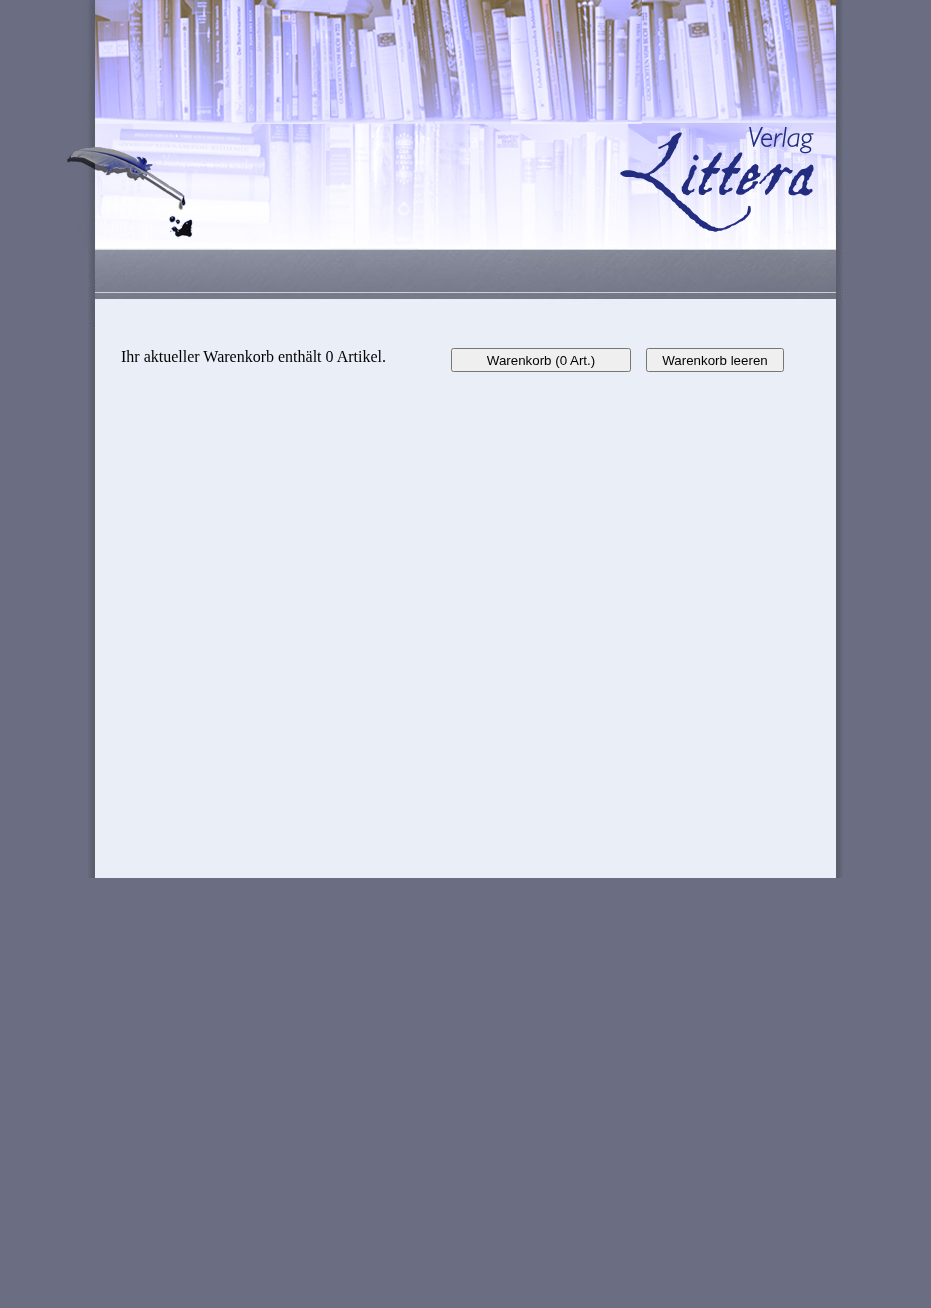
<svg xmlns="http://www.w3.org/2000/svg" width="931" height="1308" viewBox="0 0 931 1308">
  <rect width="100%" height="100%" fill="#6b6d82"/>
  <image x="67" y="0" width="776" height="249" href="img/1.png"/>
  <image x="88" y="249" width="755" height="79" href="img/2.png"/>
  <image x="88" y="328" width="755" height="550" href="img/3.png"/>
  <image x="121" y="348" width="663" height="24" href="img/4.png"/>
</svg>
